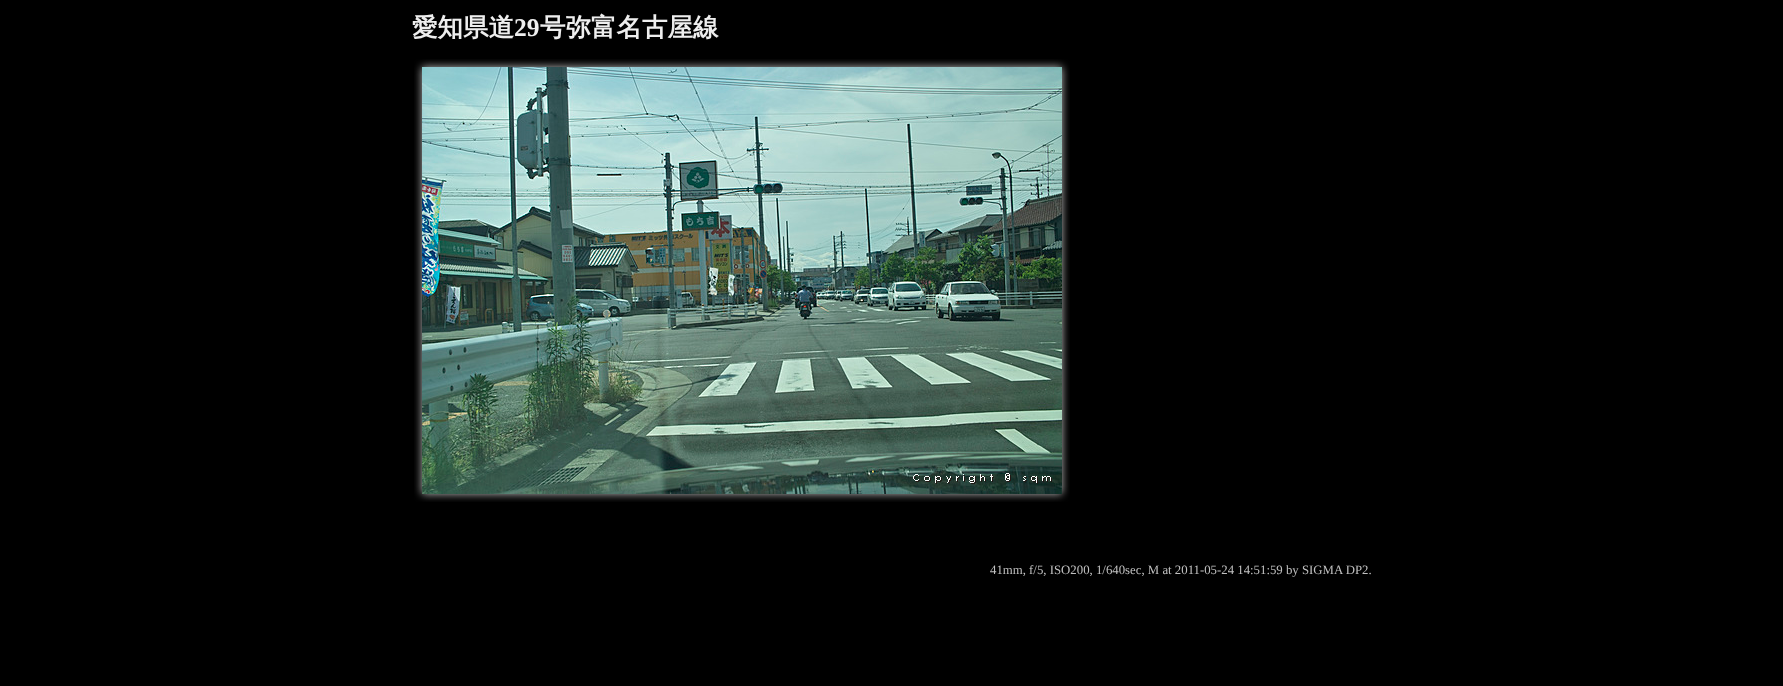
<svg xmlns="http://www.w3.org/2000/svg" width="1783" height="686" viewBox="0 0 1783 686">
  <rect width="100%" height="100%" fill="#000"/>
  <image x="414" y="59" width="656" height="443" href="img/1.png"/>
  <text x="412" y="36" font-family="WenQuanYi Zen Hei" font-size="25.5" font-weight="bold" fill="#eee">愛知県道</text>
  <text x="514" y="36" font-family="Liberation Serif" font-size="25.5" font-weight="bold" fill="#eee">29</text>
  <text x="540" y="36" font-family="WenQuanYi Zen Hei" font-size="25.5" font-weight="bold" fill="#eee">号弥富名古屋線</text>
  <text x="990" y="574" font-family="Liberation Serif" font-size="12.8" fill="#c0c0c0">41mm, f/5, ISO200, 1/640sec, M at 2011-05-24 14:51:59 by SIGMA DP2.</text>
</svg>
